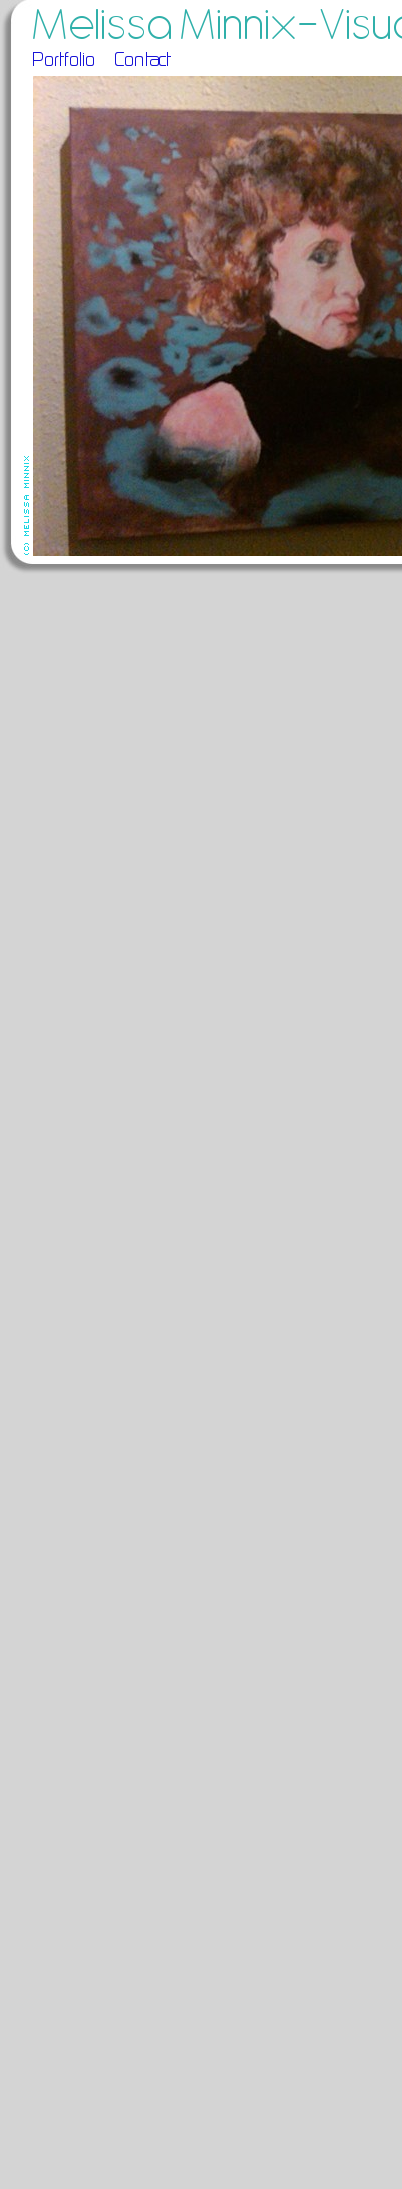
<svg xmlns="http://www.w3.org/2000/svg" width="402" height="2189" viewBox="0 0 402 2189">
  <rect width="100%" height="100%" fill="#d4d4d4"/>
  <image x="0" y="0" width="402" height="576" href="img/1.png"/>
  <image x="33" y="9" width="369" height="30" href="img/2.png"/>
  <image x="33" y="52" width="61" height="14" href="img/3.png"/>
  <image x="115" y="52" width="56" height="14" href="img/4.png"/>
  <image x="24" y="456" width="5" height="99" href="img/5.png"/>
  <image x="33" y="76" width="369" height="480" href="img/6.png"/>
</svg>
